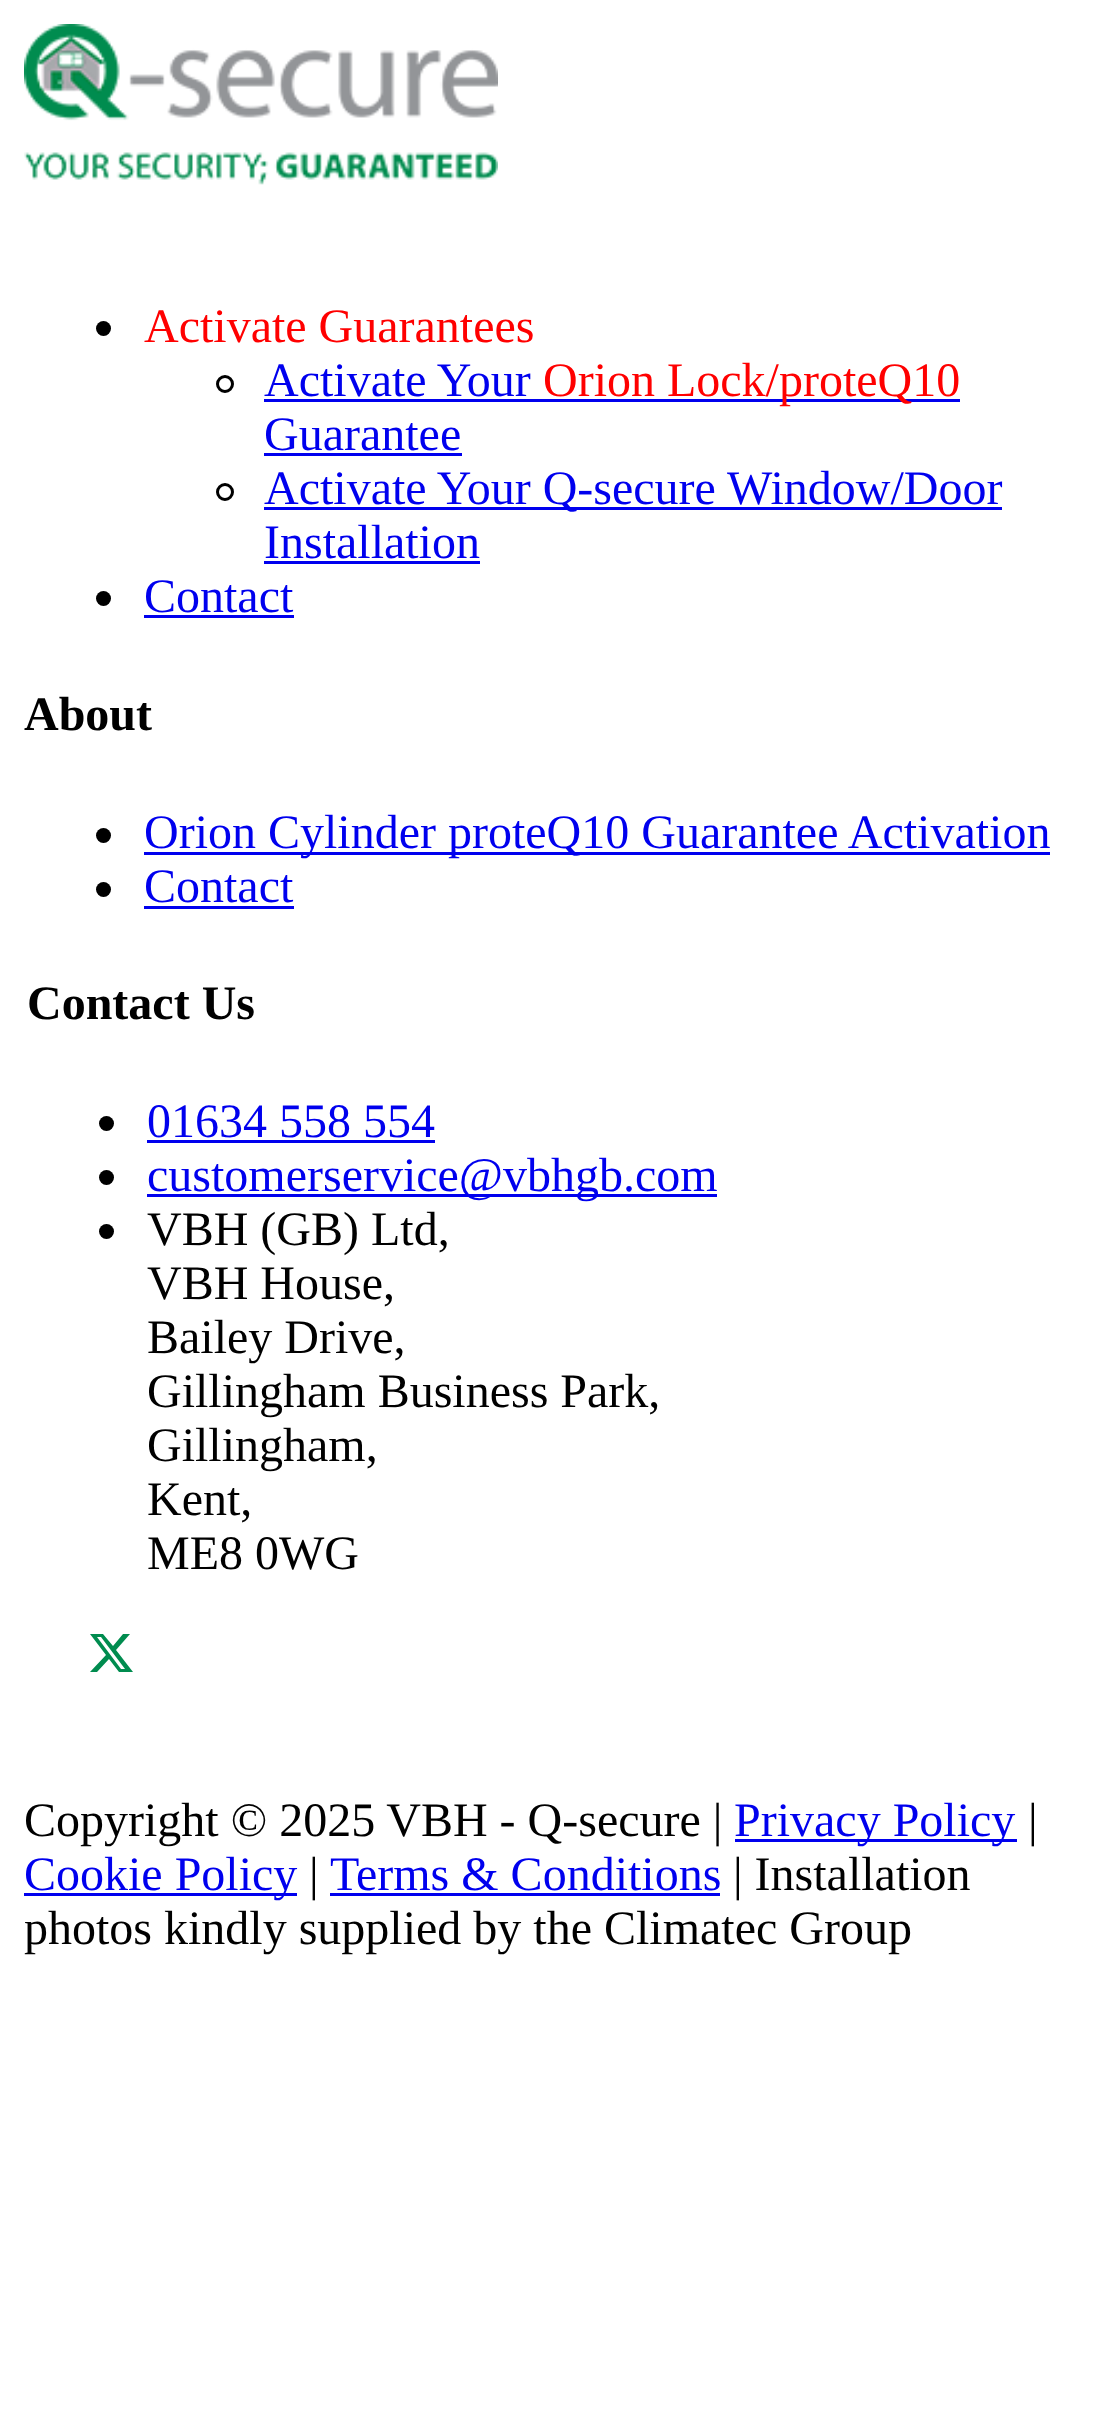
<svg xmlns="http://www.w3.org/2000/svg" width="1109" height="2413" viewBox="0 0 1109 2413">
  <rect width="100%" height="100%" fill="#fff"/>
  <image x="24" y="24" width="474" height="161" href="img/1.png"/>
  <circle cx="103.5" cy="328.5" r="7.5" fill="#000"/>
  <circle cx="225" cy="384" r="7.5" fill="none" stroke="#000" stroke-width="3"/>
  <path d="M264 399h696v3H264z" fill="#00e"/>
  <path d="M264 453h198v3H264z" fill="#00e"/>
  <circle cx="225" cy="492" r="7.5" fill="none" stroke="#000" stroke-width="3"/>
  <path d="M264 507h738v3H264z" fill="#00e"/>
  <path d="M264 561h216v3H264z" fill="#00e"/>
  <circle cx="103.5" cy="598.5" r="7.5" fill="#000"/>
  <path d="M144 615h150v3H144z" fill="#00e"/>
  <circle cx="103.5" cy="835.5" r="7.5" fill="#000"/>
  <path d="M144 852h906v3H144z" fill="#00e"/>
  <circle cx="103.5" cy="889.5" r="7.5" fill="#000"/>
  <path d="M144 906h150v3H144z" fill="#00e"/>
  <circle cx="106.5" cy="1123.5" r="7.5" fill="#000"/>
  <path d="M147 1140h288v3H147z" fill="#00e"/>
  <circle cx="106.5" cy="1177.5" r="7.5" fill="#000"/>
  <path d="M147 1194h570v3H147z" fill="#00e"/>
  <circle cx="106.5" cy="1231.5" r="7.5" fill="#000"/>
  <path d="M123 1634H130L116 1650L133 1672H119L109 1659L97 1672H90L106 1655L90 1634H103L113 1646ZM121 1669H125L101 1637H97Z" fill="#008c4f"/>
  <path d="M735 1839h282v3H735z" fill="#00e"/>
  <path d="M24 1893h273v3H24z" fill="#00e"/>
  <path d="M330 1893h390v3H330z" fill="#00e"/>
  <text x="144" y="342" font-family="Liberation Serif" font-size="48" fill="#f00">Activate Guarantees</text>
  <text x="264" y="396" font-family="Liberation Serif" font-size="48" fill="#00e">Activate Your</text>
  <text x="543" y="396" font-family="Liberation Serif" font-size="48" fill="#f00">Orion Lock/proteQ10</text>
  <g font-family="Liberation Serif" font-size="48" fill="#00e">
    <text x="264" y="450">Guarantee</text>
    <text x="264" y="504">Activate Your Q-secure Window/Door</text>
    <text x="264" y="558">Installation</text>
    <text x="144" y="612">Contact</text>
  </g>
  <text x="24" y="730" font-family="Liberation Serif" font-size="48" font-weight="bold" fill="#000">About</text>
  <g font-family="Liberation Serif" font-size="48" fill="#00e">
    <text x="144" y="848">Orion Cylinder proteQ10 Guarantee Activation</text>
    <text x="144" y="902">Contact</text>
  </g>
  <text x="27" y="1019" font-family="Liberation Serif" font-size="48" font-weight="bold" fill="#000">Contact Us</text>
  <g font-family="Liberation Serif" font-size="48" fill="#00e">
    <text x="147" y="1137">01634 558 554</text>
    <text x="147" y="1191">customerservice@vbhgb.com</text>
  </g>
  <g font-family="Liberation Serif" font-size="48" fill="#000">
    <text x="147" y="1245">VBH (GB) Ltd,</text>
    <text x="147" y="1299">VBH House,</text>
    <text x="147" y="1353">Bailey Drive,</text>
    <text x="147" y="1407">Gillingham Business Park,</text>
    <text x="147" y="1461">Gillingham,</text>
    <text x="147" y="1515">Kent,</text>
    <text x="147" y="1569">ME8 0WG</text>
    <text x="24" y="1836">Copyright © 2025 VBH - Q-secure |</text>
  </g>
  <text x="734" y="1836" font-family="Liberation Serif" font-size="48" fill="#00e">Privacy Policy</text>
  <text x="1028" y="1836" font-family="Liberation Serif" font-size="48" fill="#000">|</text>
  <text x="24" y="1890" font-family="Liberation Serif" font-size="48" fill="#00e">Cookie Policy</text>
  <text x="309" y="1890" font-family="Liberation Serif" font-size="48" fill="#000">|</text>
  <text x="330" y="1890" font-family="Liberation Serif" font-size="48" fill="#00e">Terms &amp; Conditions</text>
  <g font-family="Liberation Serif" font-size="48" fill="#000">
    <text x="733" y="1890">| Installation</text>
    <text x="24" y="1944">photos kindly supplied by the Climatec Group</text>
  </g>
</svg>
